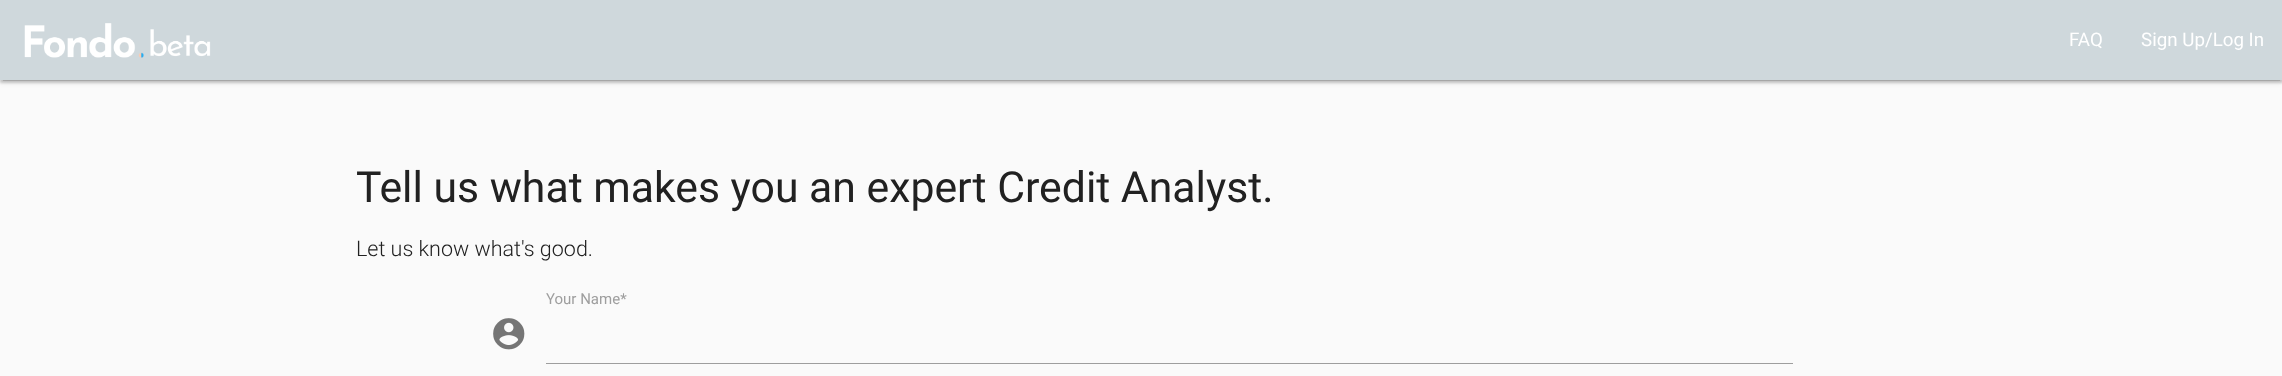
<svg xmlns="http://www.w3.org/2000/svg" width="2282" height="376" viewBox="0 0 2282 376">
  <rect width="100%" height="100%" fill="#fafafa"/>
  <path d="M0 1h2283v80H0z" fill="#00000033" filter="blur(3px)"/>
  <path d="M3 6h2277v75H3z" fill="#0000001f" filter="blur(0.5px)"/>
  <path d="M0 3h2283v80H0z" fill="#00000024" filter="blur(1px)"/>
  <path d="M0 0h2282v80H0z" fill="#cfd8dc"/>
  <image x="24" y="23" width="187" height="35" href="img/1.png"/>
  <image x="493" y="318" width="32" height="32" href="img/2.png"/>
  <path d="M546 363h1247v1H546z" fill="#9e9e9e"/>
  <g font-family="Roboto" font-size="18.75" fill="#fff">
    <text x="2069" y="46">FAQ</text>
    <text x="2141" y="46">Sign Up/Log In</text>
  </g>
  <text x="356" y="202" font-family="Roboto" font-size="42.75" fill="#212121">Tell us what makes you an expert Credit Analyst.</text>
  <text x="356" y="256" font-family="Roboto" font-size="21.5" font-weight="300" fill="#212121">Let us know what's good.</text>
  <text x="546" y="304" font-family="Roboto" font-size="15" fill="#9e9e9e">Your Name*</text>
</svg>
